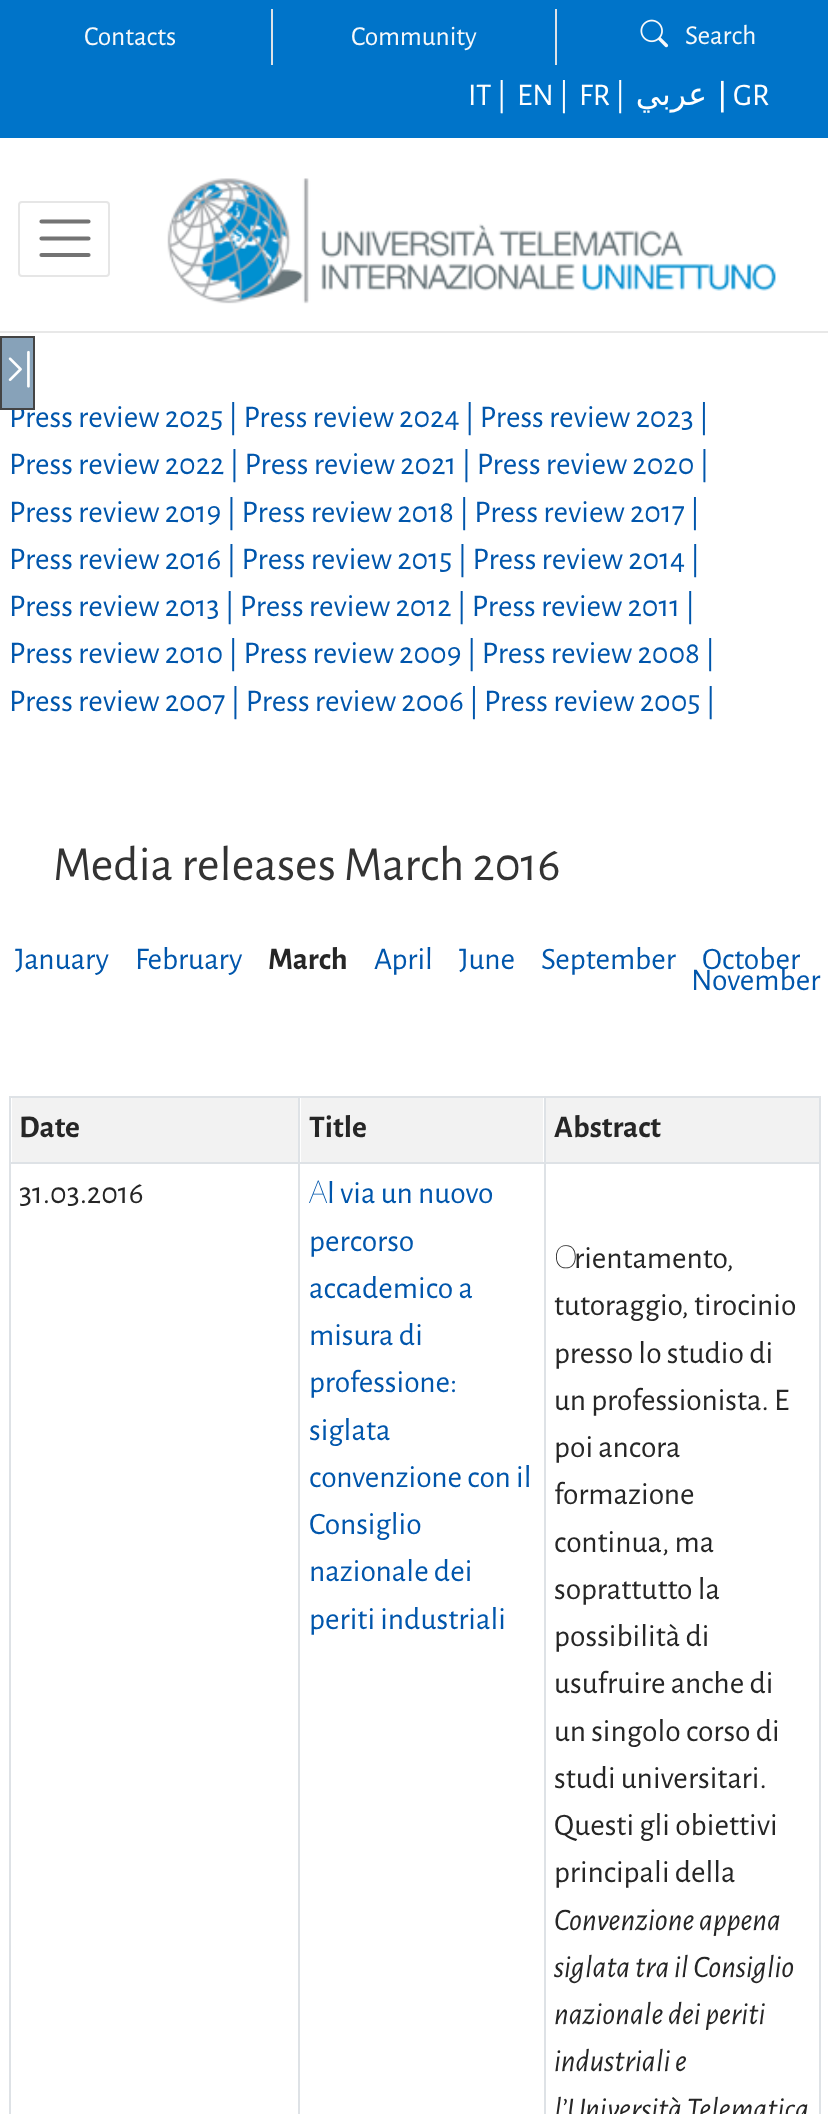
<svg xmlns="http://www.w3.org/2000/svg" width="828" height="2114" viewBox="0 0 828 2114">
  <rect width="100%" height="100%" fill="#fff"/>
  <path d="M0 331h828v2H0z" fill="#e8e8e8"/>
  <path d="M0 0h828v138H0z" fill="#0074c9"/>
  <path d="M271 9h2v56H271z" fill="#dee2e6"/>
  <path d="M555 9h2v56H555z" fill="#dee2e6"/>
  <image x="640" y="19" width="29" height="29" href="img/1.png"/>
  <rect x="19" y="202" width="90" height="74" rx="3" fill="none" stroke="#e6e6e6" stroke-width="2"/>
  <path d="M41.5 221.5H88.5M41.5 238.5H88.5M41.5 255H88.5" fill="none" stroke="#737373" stroke-width="4.2" stroke-linecap="round"/>
  <image x="167" y="178" width="609" height="126" href="img/2.png"/>
  <path d="M9 1096h812v2H9z" fill="#dee2e6"/>
  <path d="M819 1096h2v1018H819z" fill="#dee2e6"/>
  <path d="M9 1096h2v1018H9z" fill="#dee2e6"/>
  <path d="M12 1098h286v64H12z" fill="#f2f2f2"/>
  <path d="M301 1098h242v64H301z" fill="#f2f2f2"/>
  <path d="M546 1098h273v64H546z" fill="#f2f2f2"/>
  <path d="M9 1162h812v2H9z" fill="#dee2e6"/>
  <path d="M298 1096h2v1018H298z" fill="#dee2e6"/>
  <path d="M544 1096h2v1018H544z" fill="#dee2e6"/>
  <g font-family="Alegreya Sans" font-size="27.5" fill="#f8f9fa">
    <text x="84" y="45">Contacts</text>
    <text x="351" y="45">Community</text>
    <text x="685" y="44">Search</text>
  </g>
  <g font-family="Alegreya Sans" font-size="31.5" fill="#fff">
    <text x="468" y="105">IT |</text>
    <text x="517" y="105">EN |</text>
    <text x="579" y="105">FR |</text>
  </g>
  <text x="707" y="105" font-family="DejaVu Sans" font-size="31.5" direction="rtl" fill="#fff">عربي</text>
  <text x="717" y="105" font-family="DejaVu Sans" font-size="31.5" fill="#fff">|</text>
  <text x="733" y="105" font-family="Alegreya Sans" font-size="31.5" fill="#fff">GR</text>
  <text x="9" y="427" font-family="Alegreya Sans" font-size="31.5" fill="#0056ac">Press review 2025 | Press review 2024 | Press review 2023 |</text>
  <path d="M1 337h33v72H1z" fill="#87a2b9" stroke="#444" stroke-width="2"/>
  <image x="8" y="350" width="22" height="38" href="img/3.png"/>
  <g font-family="Alegreya Sans" font-size="31.5" fill="#0056ac">
    <text x="9" y="474">Press review 2022 | Press review 2021 | Press review 2020 |</text>
    <text x="9" y="522">Press review 2019 | Press review 2018 | Press review 2017 |</text>
    <text x="9" y="569">Press review 2016 | Press review 2015 | Press review 2014 |</text>
    <text x="9" y="616">Press review 2013 | Press review 2012 | Press review 2011 |</text>
    <text x="9" y="663">Press review 2010 | Press review 2009 | Press review 2008 |</text>
    <text x="9" y="711">Press review 2007 | Press review 2006 | Press review 2005 |</text>
  </g>
  <text x="53" y="880" font-family="Alegreya Sans" font-size="49" fill="#333">Media releases March 2016</text>
  <g font-family="Alegreya Sans" font-size="31.5" fill="#0056ac">
    <text x="15" y="969">January</text>
    <text x="135" y="969">February</text>
  </g>
  <text x="268" y="969" font-family="Alegreya Sans" font-size="31.5" font-weight="bold" fill="#262626">March</text>
  <g font-family="Alegreya Sans" font-size="31.5" fill="#0056ac">
    <text x="374" y="969">April</text>
    <text x="459" y="969">June</text>
    <text x="541" y="969">September</text>
    <text x="702" y="969">October</text>
    <text x="691" y="990">November</text>
  </g>
  <g font-family="Alegreya Sans" font-size="31.5" font-weight="bold" fill="#262626">
    <text x="19" y="1137">Date</text>
    <text x="309" y="1137">Title</text>
    <text x="554" y="1137">Abstract</text>
  </g>
  <text x="19" y="1203" font-family="Alegreya Sans" font-size="31.5" fill="#262626">31.03.2016</text>
  <text x="309" y="1203" font-family="Noto Sans" font-size="31.5" font-weight="100" fill="#0056ac">A</text>
  <g font-family="Alegreya Sans" font-size="31.5" fill="#0056ac">
    <text x="327" y="1203">l via un nuovo</text>
    <text x="309" y="1251">percorso</text>
    <text x="309" y="1298">accademico a</text>
    <text x="309" y="1345">misura di</text>
    <text x="309" y="1392">professione:</text>
    <text x="309" y="1440">siglata</text>
    <text x="309" y="1487">convenzione con il</text>
    <text x="309" y="1534">Consiglio</text>
    <text x="309" y="1581">nazionale dei</text>
    <text x="309" y="1629">periti industriali</text>
  </g>
  <text x="554" y="1268" font-family="Noto Sans" font-size="31.5" font-weight="100" fill="#262626">O</text>
  <g font-family="Alegreya Sans" font-size="31.5" fill="#262626">
    <text x="574" y="1268">rientamento,</text>
    <text x="554" y="1315">tutoraggio, tirocinio</text>
    <text x="554" y="1363">presso lo studio di</text>
    <text x="554" y="1410">un professionista. E</text>
    <text x="554" y="1457">poi ancora</text>
    <text x="554" y="1504">formazione</text>
    <text x="554" y="1552">continua, ma</text>
    <text x="554" y="1599">soprattutto la</text>
    <text x="554" y="1646">possibilità di</text>
    <text x="554" y="1693">usufruire anche di</text>
    <text x="554" y="1741">un singolo corso di</text>
    <text x="554" y="1788">studi universitari.</text>
    <text x="554" y="1835">Questi gli obiettivi</text>
    <text x="554" y="1882">principali della</text>
  </g>
  <g font-family="Alegreya Sans" font-size="31.5" font-style="italic" fill="#262626">
    <text x="554" y="1930">Convenzione appena</text>
    <text x="554" y="1977">siglata tra il Consiglio</text>
    <text x="554" y="2024">nazionale dei periti</text>
    <text x="554" y="2071">industriali e</text>
    <text x="554" y="2119">l’Università Telematica</text>
  </g>
</svg>
